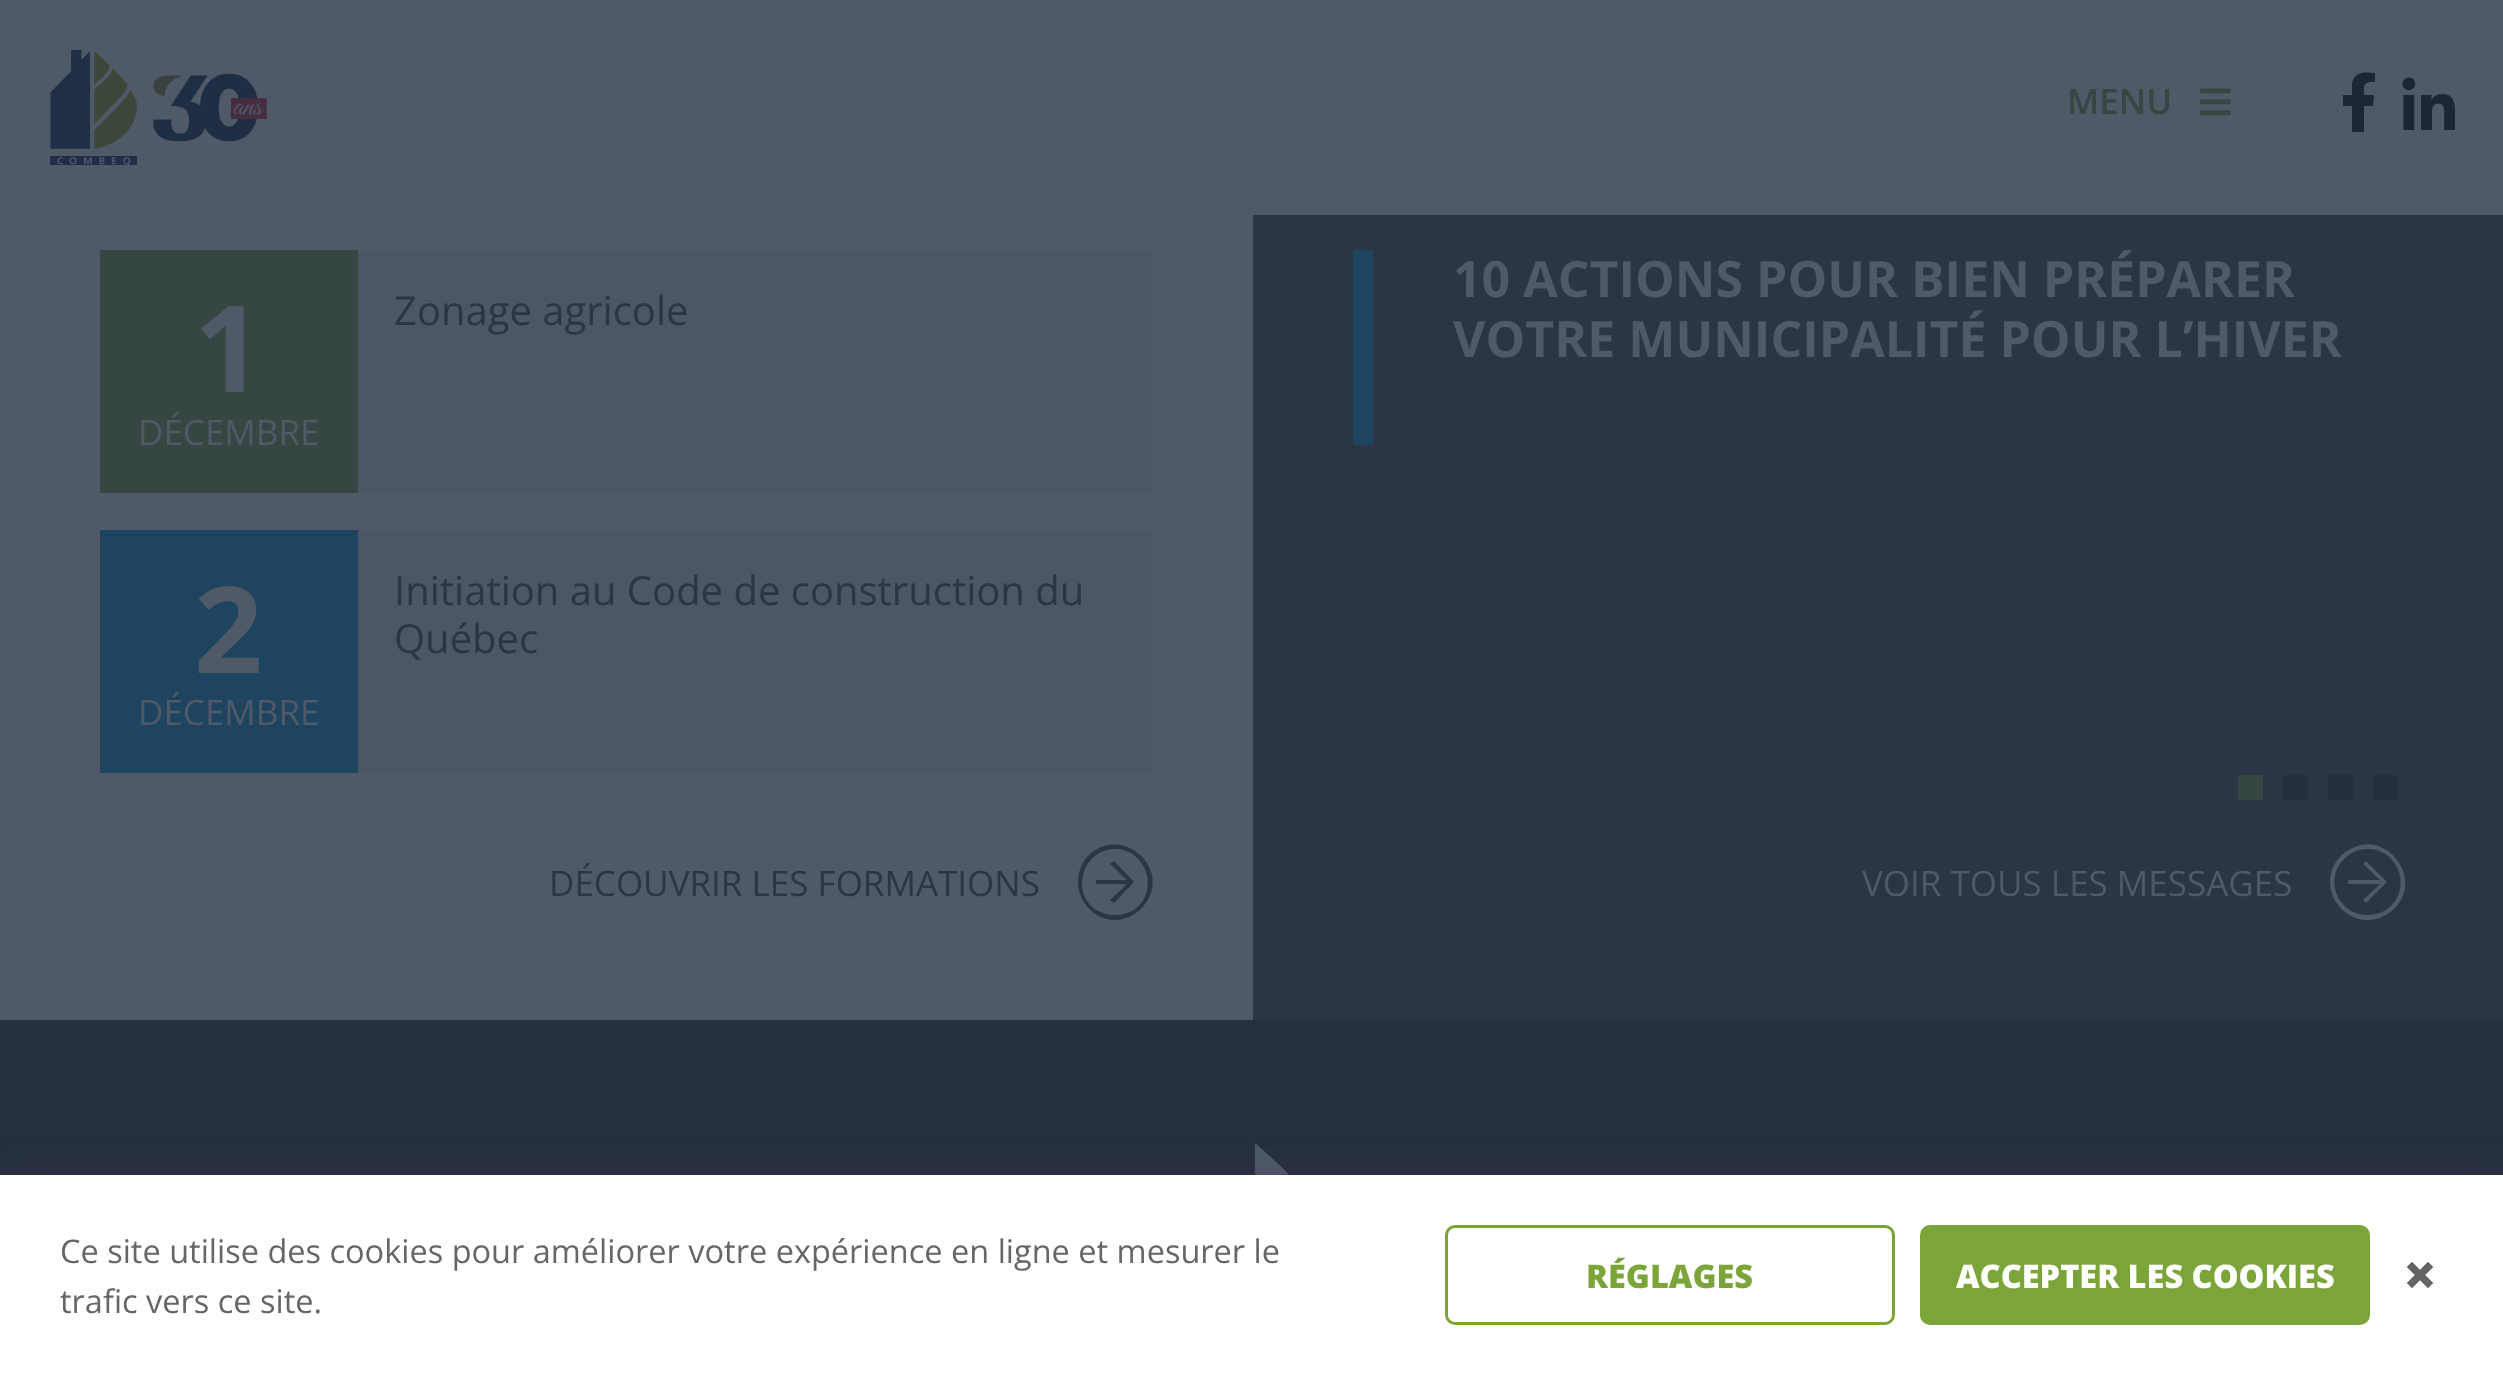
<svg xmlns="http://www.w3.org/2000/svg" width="2503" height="1374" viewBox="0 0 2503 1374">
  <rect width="100%" height="100%" fill="#505968"/>
  <image x="50" y="50" width="87" height="115" href="img/1.png"/>
  <image x="153" y="73" width="114" height="69" href="img/2.png"/>
  <image x="2200" y="88" width="31" height="28" href="img/3.png"/>
  <path d="M2373 106H2364V132H2352V106H2343V95H2352V84C2354 71 2365 72 2375 73V82C2363 82 2364 84 2364 95H2374Z" fill="#1d2635"/>
  <image x="2402" y="77" width="53" height="53" href="img/4.png"/>
  <path d="M100 250h258v243H100z" fill="#354740"/>
  <path d="M358 250h795v243H358z" fill="#4d5665"/>
  <path d="M100 530h258v243H100z" fill="#1e445f"/>
  <path d="M358 530h795v243H358z" fill="#4d5665"/>
  <path d="M1115 849C1083 849 1070 892 1096 910C1102 913 1108 915 1115 915C1122 915 1128 913 1134 910C1160 892 1147 849 1115 849ZM1115 920C1095 920 1078 902 1078 882C1078 873 1081 864 1087 857C1118 823 1172 865 1146 903C1139 913 1127 920 1115 920ZM1114 861L1110 864L1127 880H1096V884H1127L1110 900L1114 903L1134 882Z" fill="#2c3544"/>
  <path d="M1253 215h1250v805H1253z" fill="#2c3544"/>
  <path d="M1353 250h20v195H1353z" fill="#1e445f"/>
  <path d="M2238 775h25v25H2238z" fill="#354740"/>
  <path d="M2283 775h25v25H2283z" fill="#262f3e"/>
  <path d="M2328 775h25v25H2328z" fill="#262f3e"/>
  <path d="M2373 775h25v25H2373z" fill="#262f3e"/>
  <path d="M2368 849C2361 849 2354 851 2349 855C2322 873 2335 915 2368 915C2374 915 2381 913 2386 910C2413 892 2400 849 2368 849ZM2368 920C2347 920 2330 902 2330 882C2330 870 2336 858 2347 851C2384 825 2427 879 2393 910C2386 916 2377 920 2368 920ZM2366 861L2363 864L2380 880H2348V884H2380L2363 900L2366 903L2387 882Z" fill="#505968"/>
  <path d="M0 1020h2503v155H0z" fill="#27303f"/>
  <image x="1254" y="1143" width="34" height="32" href="img/5.png"/>
  <path d="M-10 1190h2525v170H-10z" fill="#242f424f" filter="blur(25px)"/>
  <path d="M-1.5 1174.5h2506v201H-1.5z" fill="none" stroke="#242f4214" stroke-width="3"/>
  <path d="M0 1175h2503v199H0z" fill="#fff"/>
  <rect x="1446.5" y="1226.5" width="447" height="97" rx="8.5" fill="none" stroke="#7ba539" stroke-width="3"/>
  <rect x="1921.5" y="1226.5" width="447" height="97" rx="8.5" fill="#7ba539" stroke="#7ba539" stroke-width="3"/>
  <image x="2407" y="1261" width="27" height="28" href="img/6.png"/>
  <text x="2067" y="114" font-family="Open Sans" font-size="35" font-weight="600" fill="#354740">MENU</text>
  <text x="194" y="392" font-family="Open Sans" font-size="120" font-weight="bold" fill="#505968">1</text>
  <text x="138" y="445" font-family="Open Sans" font-size="35" fill="#505968">DÉCEMBRE</text>
  <text x="394" y="325" font-family="Open Sans" font-size="40" fill="#2c3544">Zonage agricole</text>
  <text x="194" y="673" font-family="Open Sans" font-size="120" font-weight="bold" fill="#505968">2</text>
  <text x="138" y="725" font-family="Open Sans" font-size="35" fill="#505968">DÉCEMBRE</text>
  <g font-family="Open Sans" font-size="40" fill="#2c3544">
    <text x="394" y="605">Initiation au Code de construction du</text>
    <text x="394" y="653">Québec</text>
  </g>
  <text x="549" y="896" font-family="Open Sans" font-size="35" fill="#2c3544">DÉCOUVRIR LES FORMATIONS</text>
  <g font-family="Open Sans" font-size="50" font-weight="bold" fill="#505968">
    <text x="1453" y="297">10 ACTIONS POUR BIEN PRÉPARER</text>
    <text x="1453" y="357">VOTRE MUNICIPALITÉ POUR L’HIVER</text>
  </g>
  <text x="1862" y="896" font-family="Open Sans" font-size="35" fill="#505968">VOIR TOUS LES MESSAGES</text>
  <g font-family="Open Sans" font-size="32.5" fill="#666">
    <text x="60" y="1263">Ce site utilise des cookies pour améliorer votre expérience en ligne et mesurer le</text>
    <text x="60" y="1313">trafic vers ce site.</text>
  </g>
  <text x="1586" y="1288" font-family="Open Sans" font-size="32.5" font-weight="800" fill="#7ba539">RÉGLAGES</text>
  <text x="1956" y="1288" font-family="Open Sans" font-size="32.5" font-weight="800" fill="#fff">ACCEPTER LES COOKIES</text>
</svg>
